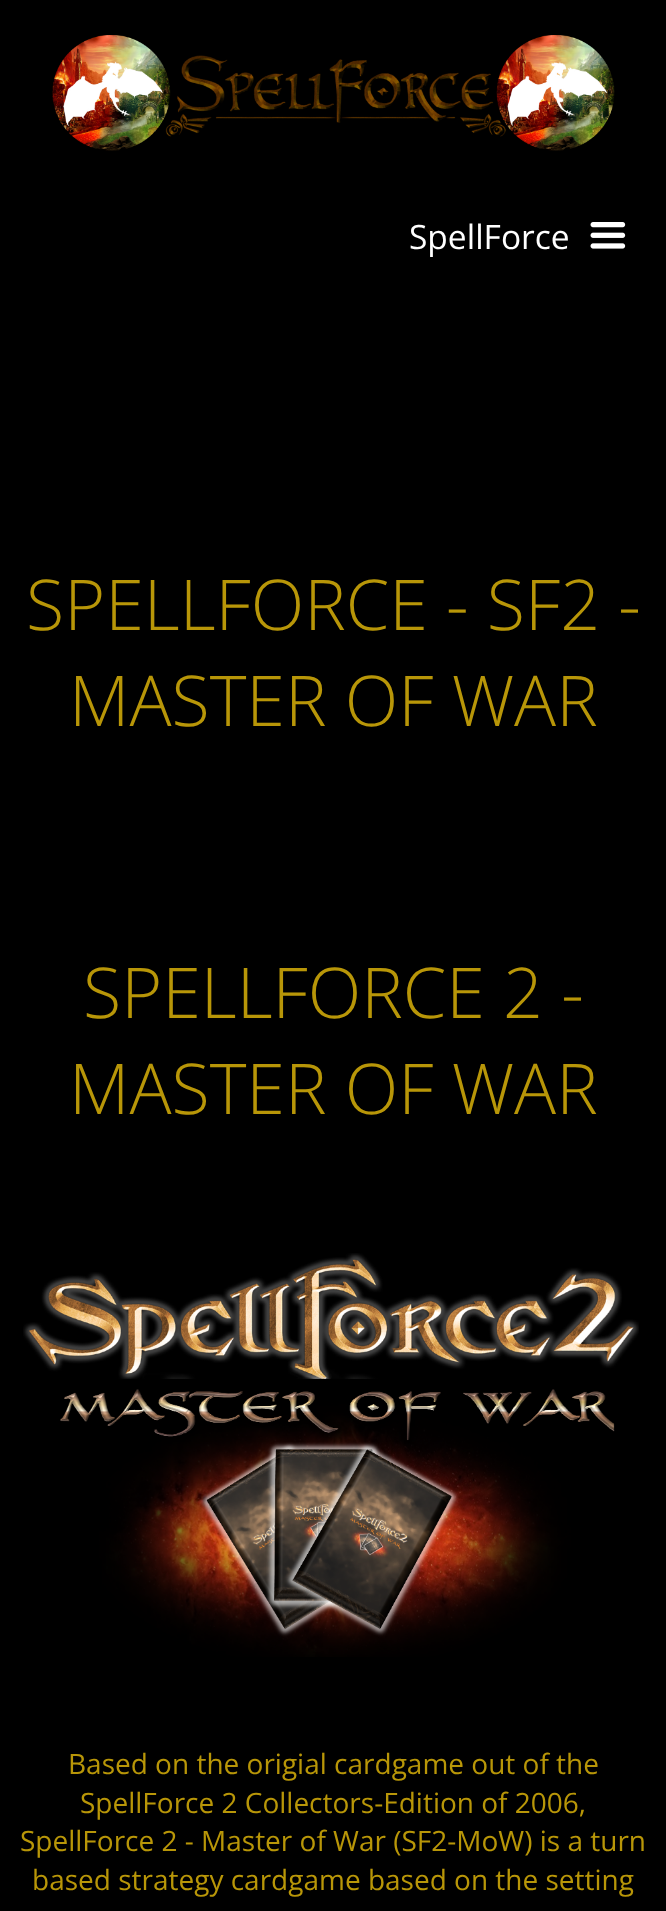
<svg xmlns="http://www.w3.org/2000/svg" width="666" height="1911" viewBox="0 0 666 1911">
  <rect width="100%" height="100%" fill="#000"/>
  <image x="52" y="35" width="563" height="116" href="img/1.png"/>
  <image x="590" y="222" width="36" height="27" href="img/2.png"/>
  <image x="23" y="1253" width="616" height="404" href="img/3.png"/>
  <text x="409" y="249" font-family="Open Sans" font-size="33.5" fill="#fff">SpellForce</text>
  <g font-family="Open Sans" font-size="70" font-weight="300" fill="#b89608">
    <text x="26" y="630">SPELLFORCE - SF2 -</text>
    <text x="69" y="726">MASTER OF WAR</text>
    <text x="83" y="1018">SPELLFORCE 2 -</text>
    <text x="69" y="1114">MASTER OF WAR</text>
  </g>
  <g font-family="Open Sans" font-size="28" fill="#b89608">
    <text x="68" y="1774">Based on the origial cardgame out of the</text>
    <text x="80" y="1813">SpellForce 2 Collectors-Edition of 2006,</text>
    <text x="20" y="1851">SpellForce 2 - Master of War (SF2-MoW) is a turn</text>
    <text x="32" y="1890">based strategy cardgame based on the setting</text>
  </g>
</svg>
